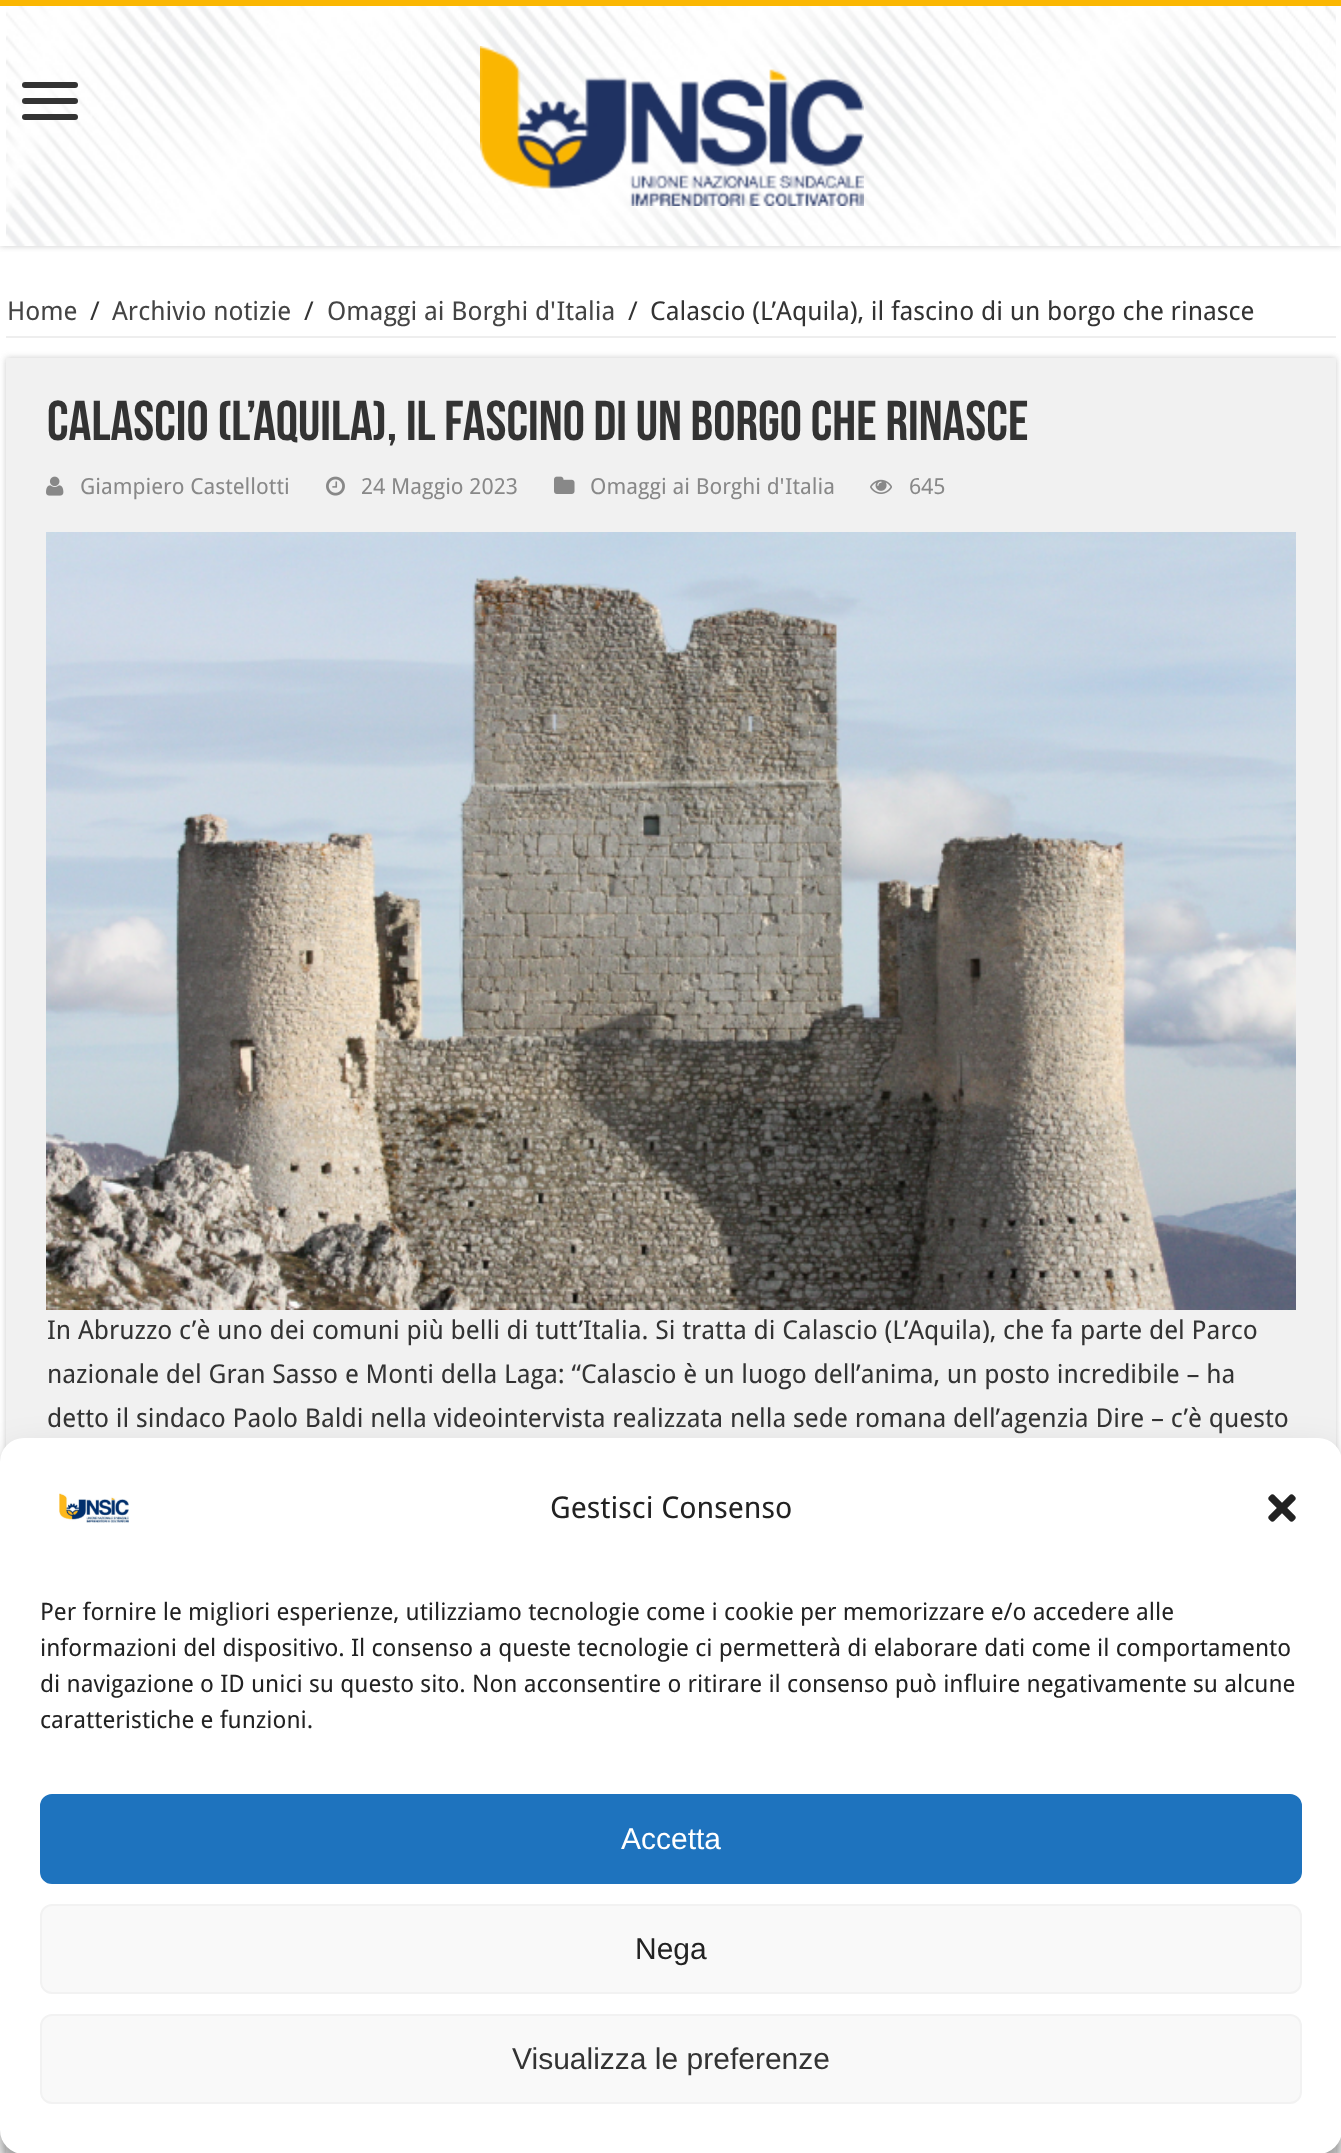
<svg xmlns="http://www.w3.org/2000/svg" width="1341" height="2153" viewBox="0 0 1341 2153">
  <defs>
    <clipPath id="clip1"><path d="M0 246h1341v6H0z"/></clipPath>
  </defs>
  <rect width="100%" height="100%" fill="#fff"/>
  <g clip-path="url(#clip1)">
    <path d="M0 0h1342v246H0z" fill="#cacaca" filter="blur(3px)"/>
  </g>
  <path d="M0 0h1341v6H0z" fill="#fbb701"/>
  <image x="6" y="6" width="1330" height="240" href="img/1.png"/>
  <rect x="22" y="82" width="56" height="6" rx="3" fill="#333"/>
  <rect x="22" y="98" width="56" height="6" rx="3" fill="#333"/>
  <rect x="22" y="114" width="56" height="6" rx="3" fill="#333"/>
  <image x="480" y="46" width="384" height="160" href="img/2.png"/>
  <path d="M6 336h1330v2H6z" fill="#eee"/>
  <path d="M6 358h1330v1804H6z" fill="#cacaca" filter="blur(3px)"/>
  <path d="M6 358h1330v1795H6z" fill="#f1f1f1"/>
  <image x="46" y="476" width="18" height="20" href="img/3.png"/>
  <image x="326" y="476" width="19" height="20" href="img/4.png"/>
  <image x="554" y="476" width="21" height="18" href="img/5.png"/>
  <image x="870" y="479" width="22" height="15" href="img/6.png"/>
  <image x="46" y="532" width="1250" height="778" href="img/7.png"/>
  <rect y="1450" width="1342" height="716" rx="24" fill="#0000003b" filter="blur(6px)"/>
  <rect y="1458" width="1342" height="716" rx="24" fill="#00000030" filter="blur(20px)"/>
  <rect y="1438" width="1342" height="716" rx="24" fill="#fff"/>
  <image x="59" y="1493" width="70" height="30" href="img/8.png"/>
  <image x="1268" y="1494" width="28" height="28" href="img/9.png"/>
  <rect x="41" y="1795" width="1260" height="88" rx="11" fill="#1e73be" stroke="#1e73be" stroke-width="2"/>
  <rect x="41" y="1905" width="1260" height="88" rx="11" fill="#f9f9f9" stroke="#f2f2f2" stroke-width="2"/>
  <rect x="41" y="2015" width="1260" height="88" rx="11" fill="#f9f9f9" stroke="#f2f2f2" stroke-width="2"/>
  <text x="7" y="320" font-family="Droid Sans" font-size="26" fill="#444">Home</text>
  <text x="90" y="320" font-family="Droid Sans" font-size="26" fill="#333">/</text>
  <text x="112" y="320" font-family="Droid Sans" font-size="26" fill="#444">Archivio notizie</text>
  <text x="304" y="320" font-family="Droid Sans" font-size="26" fill="#333">/</text>
  <text x="327" y="320" font-family="Droid Sans" font-size="26" fill="#444">Omaggi ai Borghi d'Italia</text>
  <g font-family="Droid Sans" font-size="26" fill="#333">
    <text x="628" y="320">/</text>
    <text x="650" y="320">Calascio (L’Aquila), il fascino di un borgo che rinasce</text>
  </g>
  <text x="47" y="440" font-family="Bebas Neue" font-size="56" font-weight="bold" fill="#333">Calascio (L’Aquila), il fascino di un borgo che rinasce</text>
  <g font-family="Droid Sans" font-size="22.1" fill="#888">
    <text x="80" y="494">Giampiero Castellotti</text>
    <text x="361" y="494">24 Maggio 2023</text>
    <text x="590" y="494">Omaggi ai Borghi d'Italia</text>
    <text x="909" y="494">645</text>
  </g>
  <g font-family="Droid Sans" font-size="26" fill="#333">
    <text x="47" y="1339">In Abruzzo c’è uno dei comuni più belli di tutt’Italia. Si tratta di Calascio (L’Aquila), che fa parte del Parco</text>
    <text x="47" y="1383">nazionale del Gran Sasso e Monti della Laga: “Calascio è un luogo dell’anima, un posto incredibile – ha</text>
    <text x="47" y="1427">detto il sindaco Paolo Baldi nella videointervista realizzata nella sede romana dell’agenzia Dire – c’è questo</text>
  </g>
  <text x="550" y="1518" font-family="Droid Sans" font-size="30" fill="#222">Gestisci Consenso</text>
  <g font-family="Droid Sans" font-size="24" fill="#222">
    <text x="40" y="1620">Per fornire le migliori esperienze, utilizziamo tecnologie come i cookie per memorizzare e/o accedere alle</text>
    <text x="40" y="1656">informazioni del dispositivo. Il consenso a queste tecnologie ci permetterà di elaborare dati come il comportamento</text>
    <text x="40" y="1692">di navigazione o ID unici su questo sito. Non acconsentire o ritirare il consenso può influire negativamente su alcune</text>
    <text x="40" y="1728">caratteristiche e funzioni.</text>
  </g>
  <text x="621" y="1849" font-family="Liberation Sans" font-size="30" fill="#fff">Accetta</text>
  <text x="635" y="1959" font-family="Liberation Sans" font-size="30" fill="#222">Nega</text>
  <text x="512" y="2069" font-family="Liberation Sans" font-size="30" fill="#333">Visualizza le preferenze</text>
</svg>
